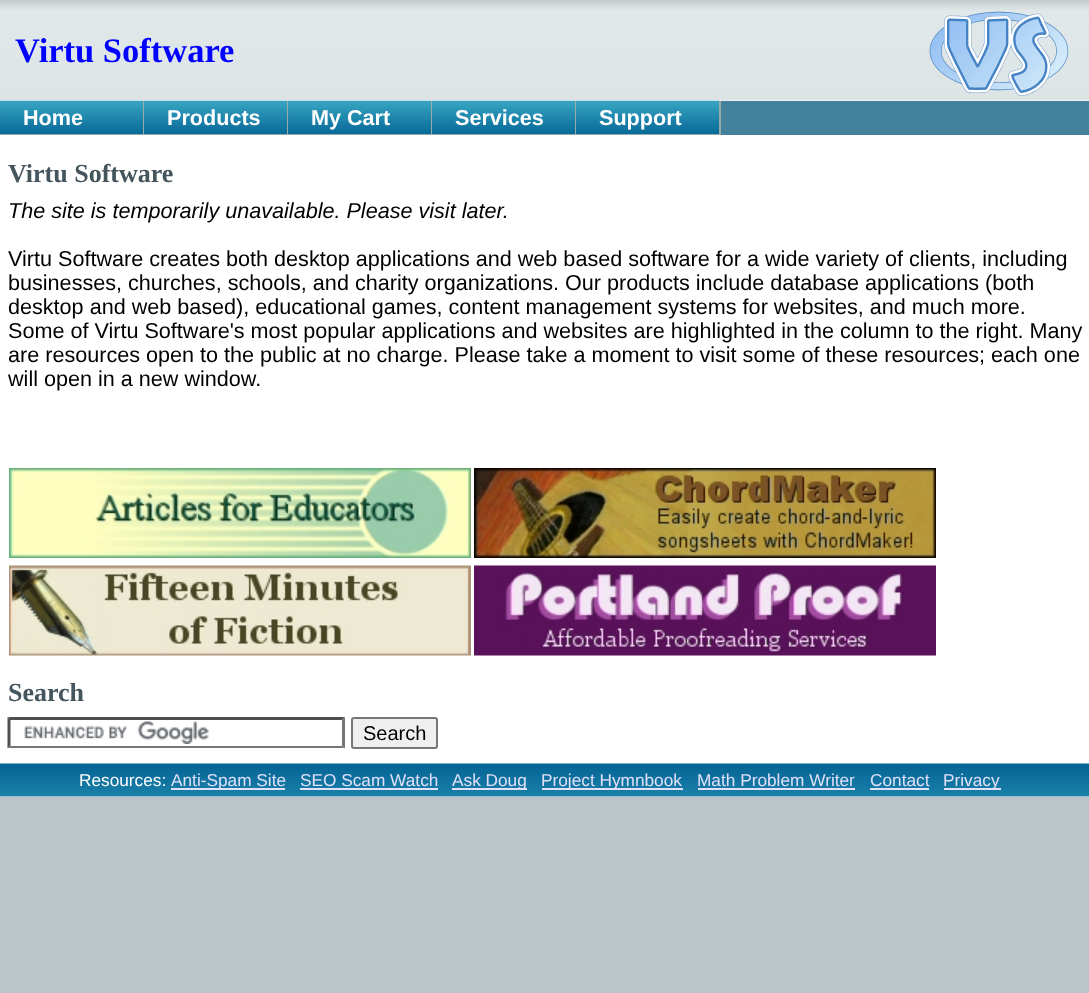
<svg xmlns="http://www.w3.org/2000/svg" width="1089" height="993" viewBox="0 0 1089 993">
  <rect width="100%" height="100%" fill="#bbc5c9"/>
  <path d="M0 100h1089v697H0z" fill="#fff"/>
  <image x="0" y="0" width="1089" height="101" href="img/1.png"/>
  <image x="929" y="11" width="140" height="85" href="img/2.png"/>
  <path d="M721 101h368v34H721z" fill="#44819c"/>
  <image x="0" y="100" width="144" height="34" href="img/3.png"/>
  <path d="M143 101h1v34H143z" fill="#9aa"/>
  <path d="M0 134h144v1H0z" fill="#9aa"/>
  <image x="144" y="100" width="144" height="34" href="img/4.png"/>
  <path d="M287 101h1v34H287z" fill="#9aa"/>
  <path d="M144 134h144v1H144z" fill="#9aa"/>
  <image x="288" y="100" width="144" height="34" href="img/5.png"/>
  <path d="M431 101h1v34H431z" fill="#9aa"/>
  <path d="M288 134h144v1H288z" fill="#9aa"/>
  <image x="432" y="100" width="144" height="34" href="img/6.png"/>
  <path d="M575 101h1v34H575z" fill="#9aa"/>
  <path d="M432 134h144v1H432z" fill="#9aa"/>
  <image x="576" y="100" width="144" height="34" href="img/7.png"/>
  <path d="M719 101h2v34H719z" fill="#9aa"/>
  <path d="M576 134h144v1H576z" fill="#9aa"/>
  <image x="9" y="468" width="462" height="90" href="img/8.png"/>
  <image x="474" y="468" width="462" height="90" href="img/9.png"/>
  <image x="9" y="565" width="462" height="91" href="img/10.png"/>
  <image x="474" y="565" width="462" height="91" href="img/11.png"/>
  <image x="24" y="721" width="185" height="23" href="img/12.png"/>
  <path d="M8 717H345L342 720H10Z" fill="#4f4f4f"/>
  <path d="M345 717V748.5L342 745.5V720Z" fill="#767676"/>
  <path d="M345 748H8L10 746H342Z" fill="#767676"/>
  <path d="M7.5 748.5V717L10.5 720V745.5Z" fill="#4f4f4f"/>
  <rect x="352" y="718" width="85" height="30" rx="2" fill="#efefef" stroke="#767676" stroke-width="2"/>
  <image x="0" y="763" width="1089" height="34" href="img/13.png"/>
  <path d="M171 788h114v2H171z" fill="#e0e0f8"/>
  <path d="M300 788h138v2H300z" fill="#e0e0f8"/>
  <path d="M452 788h75v2H452z" fill="#e0e0f8"/>
  <path d="M542 788h141v2H542z" fill="#e0e0f8"/>
  <path d="M698 788h157v2H698z" fill="#e0e0f8"/>
  <path d="M870 788h59v2H870z" fill="#e0e0f8"/>
  <path d="M944 788h57v2H944z" fill="#e0e0f8"/>
  <text x="15" y="62" font-family="Liberation Serif" font-size="34.5" font-weight="bold" fill="#00f">Virtu Software</text>
  <g font-family="Liberation Sans" font-size="21.6" font-weight="bold" fill="#fff">
    <text x="23" y="125">Home</text>
    <text x="167" y="125">Products</text>
    <text x="311" y="125">My Cart</text>
    <text x="455" y="125">Services</text>
    <text x="599" y="125">Support</text>
  </g>
  <text x="8" y="182" font-family="Liberation Serif" font-size="26" font-weight="bold" fill="#44555e">Virtu Software</text>
  <text x="8" y="218" font-family="Liberation Sans" font-size="21.6" font-style="italic" fill="#000">The site is temporarily unavailable. Please visit later.</text>
  <g font-family="Liberation Sans" font-size="21.6" fill="#000">
    <text x="8" y="266">Virtu Software creates both desktop applications and web based software for a wide variety of clients, including</text>
    <text x="8" y="290">businesses, churches, schools, and charity organizations. Our products include database applications (both</text>
    <text x="8" y="314">desktop and web based), educational games, content management systems for websites, and much more.</text>
    <text x="8" y="338">Some of Virtu Software's most popular applications and websites are highlighted in the column to the right. Many</text>
    <text x="8" y="362">are resources open to the public at no charge. Please take a moment to visit some of these resources; each one</text>
    <text x="8" y="386">will open in a new window.</text>
  </g>
  <text x="8" y="701" font-family="Liberation Serif" font-size="26" font-weight="bold" fill="#44555e">Search</text>
  <text x="363" y="740" font-family="Liberation Sans" font-size="20" fill="#000">Search</text>
  <text x="79" y="786" font-family="Liberation Sans" font-size="17.25" fill="#fff">Resources:</text>
  <g font-family="Liberation Sans" font-size="17.25" fill="#e0e0f8">
    <text x="171" y="786">Anti-Spam Site</text>
    <text x="300" y="786">SEO Scam Watch</text>
    <text x="452" y="786">Ask Doug</text>
    <text x="541" y="786">Project Hymnbook</text>
    <text x="697" y="786">Math Problem Writer</text>
    <text x="870" y="786">Contact</text>
    <text x="943" y="786">Privacy</text>
  </g>
</svg>
